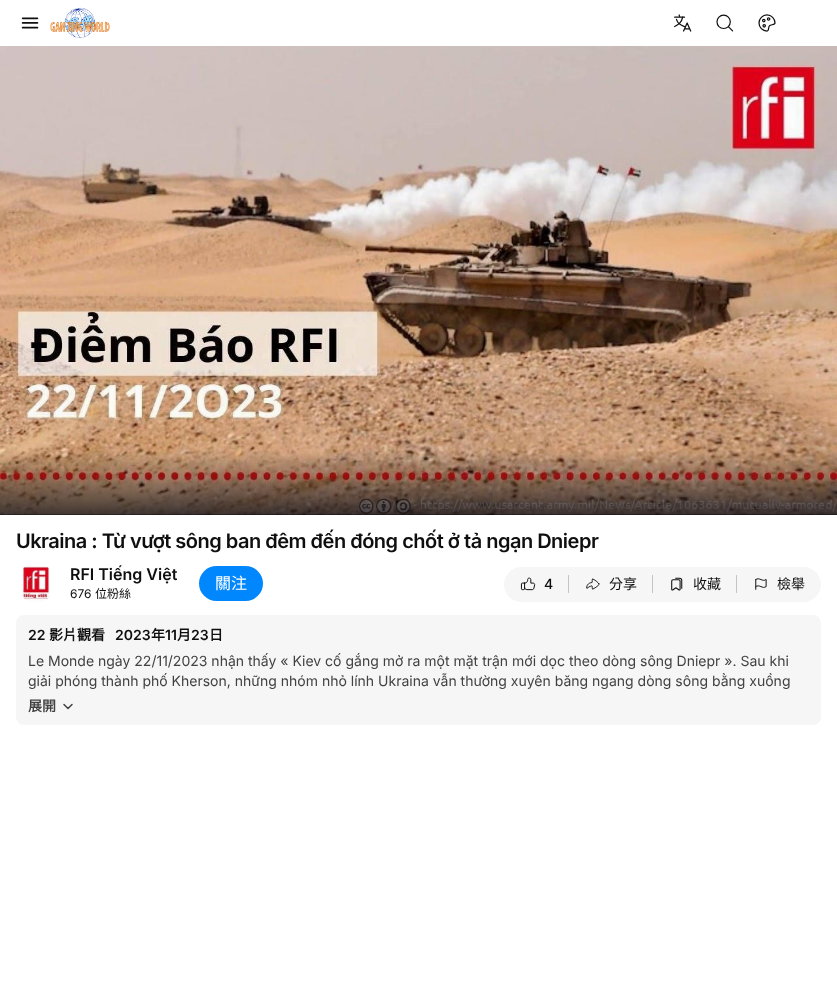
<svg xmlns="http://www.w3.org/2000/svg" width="837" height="991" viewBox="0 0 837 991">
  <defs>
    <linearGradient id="g1" gradientUnits="userSpaceOnUse" x1="419" y1="515" x2="419" y2="46"><stop offset="0" stop-color="#010511" stop-opacity="0.72"/><stop offset="0.14" stop-color="#010511" stop-opacity="0"/></linearGradient>
  </defs>
  <rect width="100%" height="100%" fill="#fff"/>
  <image x="21" y="17" width="18" height="12" href="img/1.png"/>
  <image x="50" y="7" width="60" height="31" href="img/2.png"/>
  <image x="674" y="14" width="18" height="18" href="img/3.png"/>
  <image x="716" y="14" width="18" height="18" href="img/4.png"/>
  <image x="758" y="14" width="18" height="18" href="img/5.png"/>
  <path d="M0 46h837v469H0z" fill="#000"/>
  <image x="0" y="46" width="837" height="469" href="img/6.png"/>
  <path d="M0 451h837v64H0z" fill="url(#g1)"/>
  <image x="22" y="565" width="28" height="38" href="img/7.png"/>
  <rect x="199" y="566" width="64" height="35" rx="17.5" fill="#0187fd"/>
  <path d="M521.5 567H569V602H521.5C512 602 504 594 504 584.5C504 575 512 567 521.5 567Z" fill="#f6f6f6"/>
  <image x="520" y="577" width="16" height="14" href="img/8.png"/>
  <path d="M568 575h1v18H568z" fill="#c4c4c4"/>
  <path d="M569 567h168v35H569z" fill="#f6f6f6"/>
  <image x="586" y="578" width="14" height="12" href="img/9.png"/>
  <path d="M652 575h1v18H652z" fill="#c4c4c4"/>
  <image x="671" y="577" width="12" height="14" href="img/10.png"/>
  <path d="M736 575h1v18H736z" fill="#c4c4c4"/>
  <path d="M737 567H803.5C813 567 821 575 821 584.5C821 594 813 602 803.5 602H737Z" fill="#f6f6f6"/>
  <image x="755" y="578" width="12" height="12" href="img/11.png"/>
  <rect x="16" y="615" width="805" height="110" rx="8" fill="#f6f6f6"/>
  <image x="63" y="703" width="10" height="7" href="img/12.png"/>
  <text x="16" y="548" font-family="Inter" font-size="20" font-weight="600" letter-spacing="-0.5" fill="#0f0f0f">Ukraina : Từ vượt sông ban đêm đến đóng chốt ở tả ngạn Dniepr</text>
  <text x="70" y="580" font-family="Inter" font-size="16" font-weight="600" fill="#0f0f0f">RFI Tiếng Việt</text>
  <text x="70" y="598" font-family="Inter" font-size="12" fill="#0f0f0f">676</text>
  <text x="95" y="598" font-family="Noto Sans CJK TC" font-size="12" fill="#0f0f0f">位粉絲</text>
  <text x="215" y="589" font-family="Noto Sans CJK TC" font-size="16" fill="#fff">關注</text>
  <text x="544" y="589" font-family="Inter" font-size="14" font-weight="500" fill="#0f0f0f">4</text>
  <g font-family="Noto Sans CJK TC" font-size="14" fill="#0f0f0f">
    <text x="609" y="589">分享</text>
    <text x="693" y="589">收藏</text>
    <text x="777" y="589">檢舉</text>
  </g>
  <text x="28" y="640" font-family="Inter" font-size="14" font-weight="600" fill="#0f0f0f">22</text>
  <text x="49" y="640" font-family="Noto Sans CJK TC" font-size="14" font-weight="bold" fill="#0f0f0f">影片觀看</text>
  <text x="115" y="640" font-family="Inter" font-size="14" font-weight="600" fill="#0f0f0f">2023</text>
  <text x="151" y="640" font-family="Noto Sans CJK TC" font-size="14" font-weight="bold" fill="#0f0f0f">年</text>
  <text x="165" y="640" font-family="Inter" font-size="14" font-weight="600" fill="#0f0f0f">11</text>
  <text x="177" y="640" font-family="Noto Sans CJK TC" font-size="14" font-weight="bold" fill="#0f0f0f">月</text>
  <text x="191" y="640" font-family="Inter" font-size="14" font-weight="600" fill="#0f0f0f">23</text>
  <text x="209" y="640" font-family="Noto Sans CJK TC" font-size="14" font-weight="bold" fill="#0f0f0f">日</text>
  <g font-family="Inter" font-size="14" fill="#424242">
    <text x="28" y="666">Le Monde ngày 22/11/2023 nhận thấy « Kiev cố gắng mở ra một mặt trận mới dọc theo dòng sông Dniepr ». Sau khi</text>
    <text x="28" y="686">giải phóng thành phố Kherson, những nhóm nhỏ lính Ukraina vẫn thường xuyên băng ngang dòng sông bằng xuồng</text>
  </g>
  <text x="28" y="711" font-family="Noto Sans CJK TC" font-size="14" font-weight="bold" fill="#424242">展開</text>
</svg>
